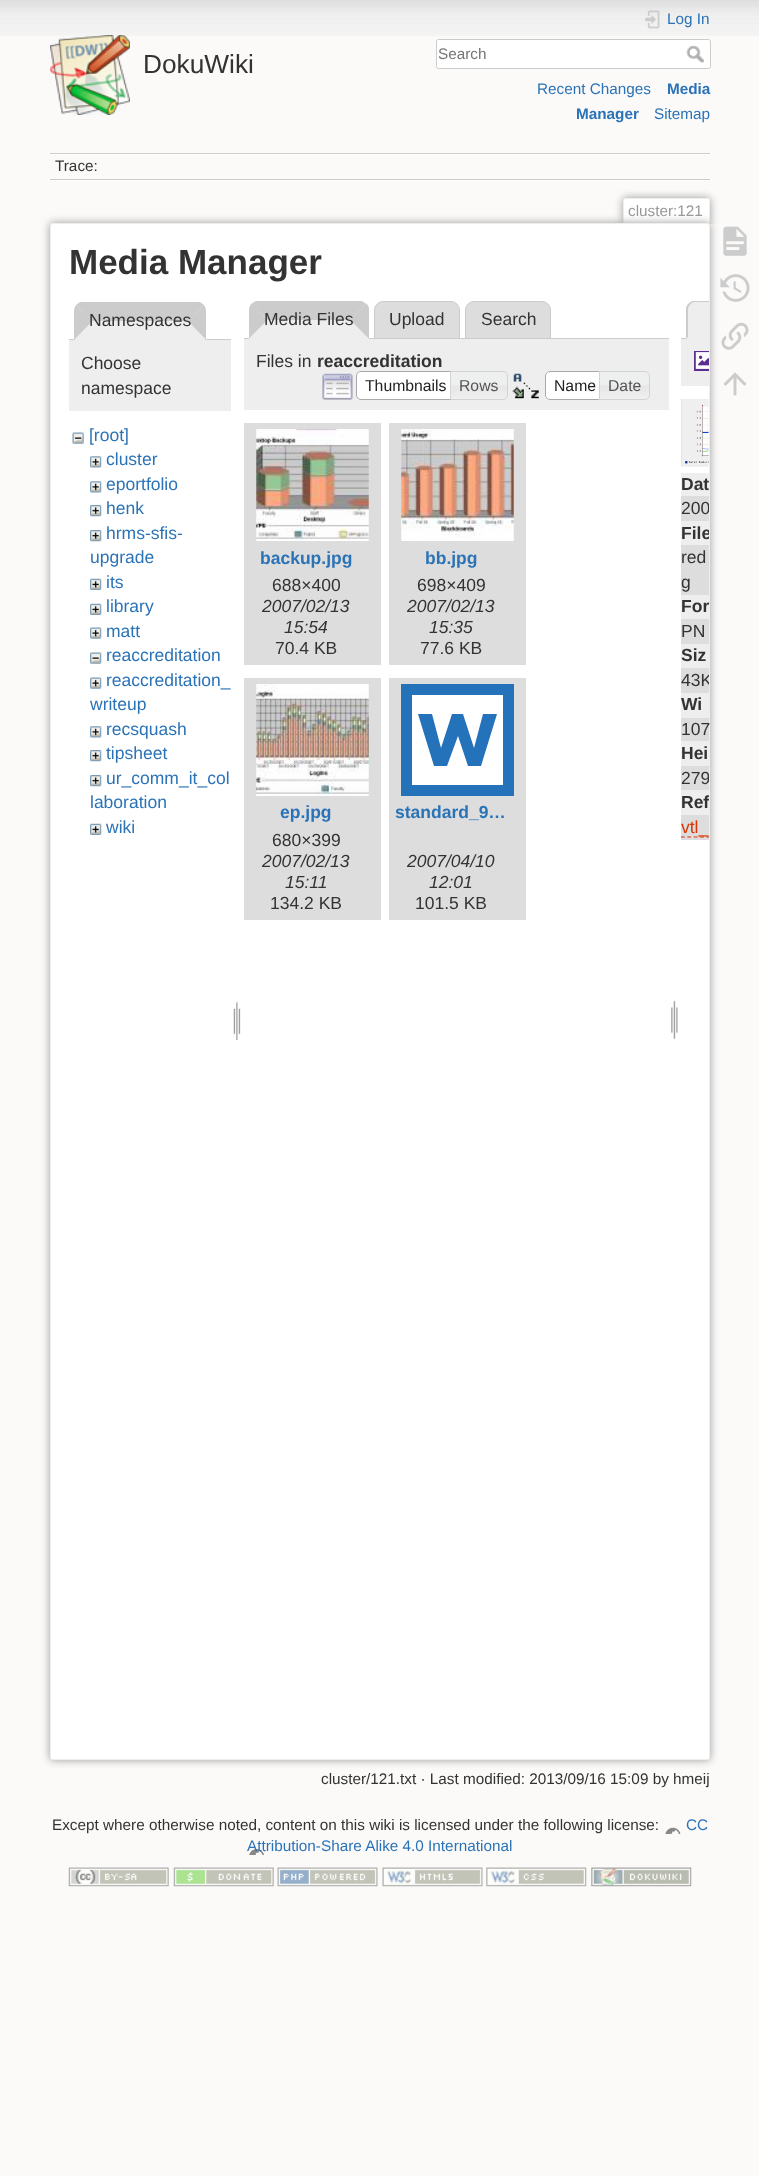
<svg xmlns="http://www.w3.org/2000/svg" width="759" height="2176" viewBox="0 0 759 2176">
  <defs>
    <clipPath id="clip1"><path d="M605 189h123v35H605z"/></clipPath>
    <clipPath id="clip2"><rect x="51" y="224" width="658" height="1535" rx="1"/></clipPath>
  </defs>
  <rect width="100%" height="100%" fill="#fbfaf9"/>
  <image x="0" y="0" width="759" height="36" href="img/1.png"/>
  <image x="50" y="35" width="80" height="80" href="img/2.png"/>
  <image x="645" y="10" width="15" height="19" href="img/3.png"/>
  <rect x="436.5" y="39.5" width="274" height="29" rx="2" fill="#fff" stroke="#ccc"/>
  <image x="686" y="45" width="18" height="18" href="img/4.png"/>
  <path d="M50 153h660v1H50z" fill="#ccc"/>
  <path d="M50 180h660v1H50z" fill="#fff"/>
  <path d="M50 154h660v1H50z" fill="#fff"/>
  <path d="M50 179h660v1H50z" fill="#ccc"/>
  <g clip-path="url(#clip1)">
    <rect x="623" y="198" width="87" height="26" rx="2.5" fill="#999" filter="blur(4px)"/>
  </g>
  <path d="M625 199H708C708.5 199 709 199.5 709 200V224H624V200C624 199.5 624.5 199 625 199Z" fill="#fff"/>
  <path d="M624 198h85v1H624z" fill="#eee"/>
  <path d="M709 199h1v25H709z" fill="#eee"/>
  <path d="M623 199h1v25H623z" fill="#eee"/>
  <rect x="50" y="223" width="660" height="1537" rx="2.5" fill="#999" filter="blur(4.5px)"/>
  <rect x="50.5" y="223.5" width="659" height="1536" rx="2" fill="#fff" stroke="#eee"/>
  <path d="M200 302H80L76 305L92 321H188L204 305Z" fill="#ccc"/>
  <path d="M69 339h162v1H69z" fill="#ccc"/>
  <path d="M204 305L187.5 321L206 340V311C206 308.5 205 306.5 204 305Z" fill="#ccc"/>
  <path d="M206 340L188 321H92L74 340Z" fill="#eee"/>
  <path d="M74 340L92.5 321L76 305C75 306.5 74 308.5 74 311Z" fill="#ccc"/>
  <path d="M69 340h162v71H69z" fill="#eee"/>
  <image x="72" y="432" width="12" height="12" href="img/5.png"/>
  <image x="90" y="456" width="12" height="12" href="img/6.png"/>
  <image x="90" y="481" width="12" height="12" href="img/6.png"/>
  <image x="90" y="505" width="12" height="12" href="img/7.png"/>
  <image x="90" y="530" width="12" height="12" href="img/7.png"/>
  <image x="90" y="578" width="12" height="12" href="img/8.png"/>
  <image x="90" y="603" width="12" height="12" href="img/8.png"/>
  <image x="90" y="627" width="12" height="12" href="img/9.png"/>
  <image x="90" y="652" width="12" height="12" href="img/10.png"/>
  <image x="90" y="677" width="12" height="12" href="img/9.png"/>
  <image x="90" y="726" width="12" height="12" href="img/6.png"/>
  <image x="90" y="750" width="12" height="12" href="img/7.png"/>
  <image x="90" y="775" width="12" height="12" href="img/11.png"/>
  <image x="90" y="823" width="12" height="12" href="img/8.png"/>
  <image x="233" y="1001" width="8" height="40" href="img/12.png"/>
  <path d="M383 301.5H451C455.5 301.5 459.5 305.5 459.5 310V338.5H374.5V310C374.5 305.5 378.5 301.5 383 301.5Z" fill="#ddd" stroke="#ccc"/>
  <path d="M474 301.5H542C546.5 301.5 550.5 305.5 550.5 310V338.5H465.5V310C465.5 305.5 469.5 301.5 474 301.5Z" fill="#ddd" stroke="#ccc"/>
  <path d="M244 338h425v1H244z" fill="#ccc"/>
  <path d="M258 301H360C365 301 369 305 369 310V339H249V310C249 305 253 301 258 301Z" fill="#eee"/>
  <path d="M362 301H256C254 302 253 303 251 304L268 320H350L366 304Z" fill="#ccc"/>
  <path d="M366.5 303.5L350 320L369 339V308C368.5 306 367.5 305 366.5 303.5Z" fill="#ccc"/>
  <path d="M369 339L350 320H268L249 339Z" fill="#eee"/>
  <path d="M249 338.5L267.5 320L251.5 304C250 305.5 249 307.5 249 310Z" fill="#ccc"/>
  <path d="M244 339h425v71H244z" fill="#eee"/>
  <image x="322" y="373" width="31" height="27" href="img/13.png"/>
  <path d="M361 371.5H455.5V399.5H361C358.5 399.5 356.5 397.5 356.5 395V376C356.5 373.5 358.5 371.5 361 371.5Z" fill="#fff" stroke="#aaa"/>
  <image x="451" y="371" width="56" height="29" href="img/14.png"/>
  <path d="M450.5 371.5H503C505.5 371.5 507.5 373.5 507.5 376V395C507.5 397.5 505.5 399.5 503 399.5H450.5Z" fill="none" stroke="#d3d3d3"/>
  <image x="512" y="373" width="27" height="26" href="img/15.png"/>
  <path d="M550 371H605V400H550C547 400 545 398 545 395V376C545 373 547 371 550 371Z" fill="#fff"/>
  <path d="M546 398h1v1H546z" fill="#fbfbfb"/>
  <path d="M550 371.5H604.5V399.5H550C547.5 399.5 545.5 397.5 545.5 395V376C545.5 373.5 547.5 371.5 550 371.5Z" fill="none" stroke="#aaa"/>
  <image x="598" y="371" width="52" height="29" href="img/16.png"/>
  <path d="M599.5 371.5H645C647.5 371.5 649.5 373.5 649.5 376V395C649.5 397.5 647.5 399.5 645 399.5H599.5Z" fill="none" stroke="#d3d3d3"/>
  <path d="M244 423h137v242H244z" fill="#ddd"/>
  <image x="256" y="429" width="113" height="112" href="img/17.png"/>
  <path d="M389 423h137v242H389z" fill="#ddd"/>
  <image x="401" y="429" width="113" height="112" href="img/18.png"/>
  <path d="M244 678h137v242H244z" fill="#ddd"/>
  <image x="256" y="684" width="113" height="112" href="img/19.png"/>
  <path d="M389 678h137v242H389z" fill="#ddd"/>
  <path d="M412 695h91v90H412z" fill="#fff"/>
  <path d="M514 796H401V684H514ZM412 785H503V695H412" fill="#2372ba"/>
  <path d="M432 714L441 748L452 714H463L474 748L483 714H497L481 766H468L458 736L447 766H434L418 714Z" fill="#2372ba"/>
  <image x="671" y="1000" width="7" height="39" href="img/20.png"/>
  <path d="M681 338h5v1H681z" fill="#ccc"/>
  <path d="M695 301H709V339H686V310C686 305 690 301 695 301Z" fill="#eee"/>
  <path d="M709 301H693C691 301.5 690 302.5 688.5 303.5L690 305C691 303 693 302 695 302H709Z" fill="#ccc"/>
  <path d="M686 339L688 337V310C688 308 688.5 306 690 305L688.5 303.5C687.5 305 686.5 306 686 308Z" fill="#ccc"/>
  <path d="M681 339h28v47H681z" fill="#eee"/>
  <image x="694" y="351" width="15" height="20" href="img/21.png"/>
  <image x="681" y="399" width="28" height="68" href="img/22.png"/>
  <path d="M681 473h28v23H681z" fill="#eee"/>
  <path d="M681 496h28v25H681z" fill="#ddd"/>
  <path d="M681 521h28v24H681z" fill="#eee"/>
  <path d="M681 545h28v50H681z" fill="#ddd"/>
  <path d="M681 595h28v24H681z" fill="#eee"/>
  <path d="M681 619h28v25H681z" fill="#ddd"/>
  <path d="M681 644h28v24H681z" fill="#eee"/>
  <path d="M681 668h28v25H681z" fill="#ddd"/>
  <path d="M681 693h28v25H681z" fill="#eee"/>
  <path d="M681 718h28v23H681z" fill="#ddd"/>
  <path d="M681 741h28v25H681z" fill="#eee"/>
  <path d="M681 766h28v24H681z" fill="#ddd"/>
  <path d="M681 790h28v25H681z" fill="#eee"/>
  <path d="M681 815h28v25H681z" fill="#ddd"/>
  <g clip-path="url(#clip2)">
    <path d="M681 837H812.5" fill="none" stroke="#d30" stroke-width="1.2" stroke-dasharray="3.75 2.62"/>
  </g>
  <image x="723" y="226" width="24" height="30" href="img/23.png"/>
  <image x="720" y="274" width="30" height="28" href="img/24.png"/>
  <image x="721" y="322" width="28" height="28" href="img/25.png"/>
  <image x="723" y="372" width="24" height="24" href="img/26.png"/>
  <image x="68" y="1867" width="101" height="20" href="img/28.png"/>
  <image x="173" y="1867" width="101" height="20" href="img/29.png"/>
  <image x="277" y="1867" width="101" height="20" href="img/30.png"/>
  <image x="382" y="1867" width="101" height="20" href="img/31.png"/>
  <image x="486" y="1867" width="101" height="20" href="img/32.png"/>
  <image x="591" y="1867" width="101" height="20" href="img/33.png"/>
  <text x="143" y="73" font-family="Liberation Sans" font-size="26.25" fill="#333">DokuWiki</text>
  <text x="667" y="24" font-family="Liberation Sans" font-size="15.3" fill="#2b73b7">Log In</text>
  <text x="438" y="59" font-family="Liberation Sans" font-size="15.3" fill="#757575">Search</text>
  <text x="537" y="94" font-family="Liberation Sans" font-size="15.3" fill="#2b73b7">Recent Changes</text>
  <g font-family="Liberation Sans" font-size="15.3" font-weight="bold" fill="#2b73b7">
    <text x="667" y="94">Media</text>
    <text x="576" y="119">Manager</text>
  </g>
  <text x="654" y="119" font-family="Liberation Sans" font-size="15.3" fill="#2b73b7">Sitemap</text>
  <text x="55" y="171" font-family="Liberation Sans" font-size="15.3" fill="#333">Trace:</text>
  <text x="628" y="216" font-family="Liberation Sans" font-size="15.3" fill="#999">cluster:121</text>
  <text x="69" y="274" font-family="Liberation Sans" font-size="35" font-weight="bold" fill="#333">Media Manager</text>
  <g font-family="Liberation Sans" font-size="17.5" fill="#333">
    <text x="89" y="326">Namespaces</text>
    <text x="81" y="369">Choose</text>
    <text x="81" y="394">namespace</text>
  </g>
  <g font-family="Liberation Sans" font-size="17.5" fill="#2b73b7">
    <text x="89" y="441">[root]</text>
    <text x="106" y="465">cluster</text>
    <text x="106" y="490">eportfolio</text>
    <text x="106" y="514">henk</text>
    <text x="106" y="539">hrms-sfis-</text>
    <text x="90" y="563">upgrade</text>
    <text x="106" y="588">its</text>
    <text x="106" y="612">library</text>
    <text x="106" y="637">matt</text>
    <text x="106" y="661">reaccreditation</text>
    <text x="106" y="686">reaccreditation_</text>
    <text x="90" y="710">writeup</text>
    <text x="106" y="735">recsquash</text>
    <text x="106" y="759">tipsheet</text>
    <text x="106" y="784">ur_comm_it_col</text>
    <text x="90" y="808">laboration</text>
    <text x="106" y="833">wiki</text>
  </g>
  <g font-family="Liberation Sans" font-size="17.5" fill="#333">
    <text x="264" y="325">Media Files</text>
    <text x="389" y="325">Upload</text>
    <text x="481" y="325">Search</text>
    <text x="256" y="367">Files in</text>
  </g>
  <text x="317" y="367" font-family="Liberation Sans" font-size="17.5" font-weight="bold" fill="#333">reaccreditation</text>
  <text x="365" y="391" font-family="Liberation Sans" font-size="15.75" fill="#212121">Thumbnails</text>
  <text x="459" y="391" font-family="Liberation Sans" font-size="15.75" fill="#555">Rows</text>
  <text x="554" y="391" font-family="Liberation Sans" font-size="15.75" fill="#212121">Name</text>
  <text x="608" y="391" font-family="Liberation Sans" font-size="15.75" fill="#555">Date</text>
  <text x="260" y="564" font-family="Liberation Sans" font-size="17.5" font-weight="bold" fill="#2b73b7">backup.jpg</text>
  <text x="272" y="591" font-family="Liberation Sans" font-size="17.5" fill="#333">688×400</text>
  <g font-family="Liberation Sans" font-size="17.5" font-style="italic" fill="#333">
    <text x="262" y="612">2007/02/13</text>
    <text x="284" y="633">15:54</text>
  </g>
  <text x="275" y="654" font-family="Liberation Sans" font-size="17.5" fill="#333">70.4 KB</text>
  <text x="425" y="564" font-family="Liberation Sans" font-size="17.5" font-weight="bold" fill="#2b73b7">bb.jpg</text>
  <text x="417" y="591" font-family="Liberation Sans" font-size="17.5" fill="#333">698×409</text>
  <g font-family="Liberation Sans" font-size="17.5" font-style="italic" fill="#333">
    <text x="407" y="612">2007/02/13</text>
    <text x="429" y="633">15:35</text>
  </g>
  <text x="420" y="654" font-family="Liberation Sans" font-size="17.5" fill="#333">77.6 KB</text>
  <text x="280" y="818" font-family="Liberation Sans" font-size="17.5" font-weight="bold" fill="#2b73b7">ep.jpg</text>
  <text x="272" y="846" font-family="Liberation Sans" font-size="17.5" fill="#333">680×399</text>
  <g font-family="Liberation Sans" font-size="17.5" font-style="italic" fill="#333">
    <text x="262" y="867">2007/02/13</text>
    <text x="285" y="888">15:11</text>
  </g>
  <text x="270" y="909" font-family="Liberation Sans" font-size="17.5" fill="#333">134.2 KB</text>
  <text x="395" y="818" font-family="Liberation Sans" font-size="17.5" font-weight="bold" fill="#2b73b7">standard_9…</text>
  <g font-family="Liberation Sans" font-size="17.5" font-style="italic" fill="#333">
    <text x="407" y="867">2007/04/10</text>
    <text x="429" y="888">12:01</text>
  </g>
  <text x="415" y="909" font-family="Liberation Sans" font-size="17.5" fill="#333">101.5 KB</text>
  <g clip-path="url(#clip2)">
    <text x="681" y="490" font-family="Liberation Sans" font-size="17.5" font-weight="bold" fill="#333">Dat</text>
    <text x="681" y="514" font-family="Liberation Sans" font-size="17.5" fill="#333">200</text>
    <text x="681" y="539" font-family="Liberation Sans" font-size="17.5" font-weight="bold" fill="#333">File</text>
  </g>
  <g font-family="Liberation Sans" font-size="17.5" fill="#333">
    <text x="681" y="563">red</text>
    <text x="681" y="588">g</text>
  </g>
  <text x="681" y="612" font-family="Liberation Sans" font-size="17.5" font-weight="bold" fill="#333">For</text>
  <text x="681" y="637" font-family="Liberation Sans" font-size="17.5" fill="#333">PN</text>
  <text x="681" y="661" font-family="Liberation Sans" font-size="17.5" font-weight="bold" fill="#333">Siz</text>
  <g clip-path="url(#clip2)">
    <text x="681" y="686" font-family="Liberation Sans" font-size="17.5" fill="#333">43K</text>
  </g>
  <text x="681" y="710" font-family="Liberation Sans" font-size="17.5" font-weight="bold" fill="#333">Wi</text>
  <text x="681" y="735" font-family="Liberation Sans" font-size="17.5" fill="#333">107</text>
  <text x="681" y="759" font-family="Liberation Sans" font-size="17.5" font-weight="bold" fill="#333">Hei</text>
  <g clip-path="url(#clip2)">
    <text x="681" y="784" font-family="Liberation Sans" font-size="17.5" fill="#333">279</text>
    <text x="681" y="808" font-family="Liberation Sans" font-size="17.5" font-weight="bold" fill="#333">Ref</text>
  </g>
  <text x="681" y="833" font-family="Liberation Sans" font-size="17.5" fill="#d30">vtl_</text>
  <g font-family="Liberation Sans" font-size="15.3" fill="#333">
    <text x="321" y="1784">cluster/121.txt · Last modified: 2013/09/16 15:09 by hmeij</text>
    <text x="52" y="1830">Except where otherwise noted, content on this wiki is licensed under the following license:</text>
  </g>
  <text x="686" y="1830" font-family="Liberation Sans" font-size="15.3" fill="#2b73b7">CC</text>
  <image x="249" y="1827" width="432" height="28" href="img/27.png"/>
  <text x="247" y="1851" font-family="Liberation Sans" font-size="15.3" fill="#2b73b7">Attribution-Share Alike 4.0 International</text>
</svg>
